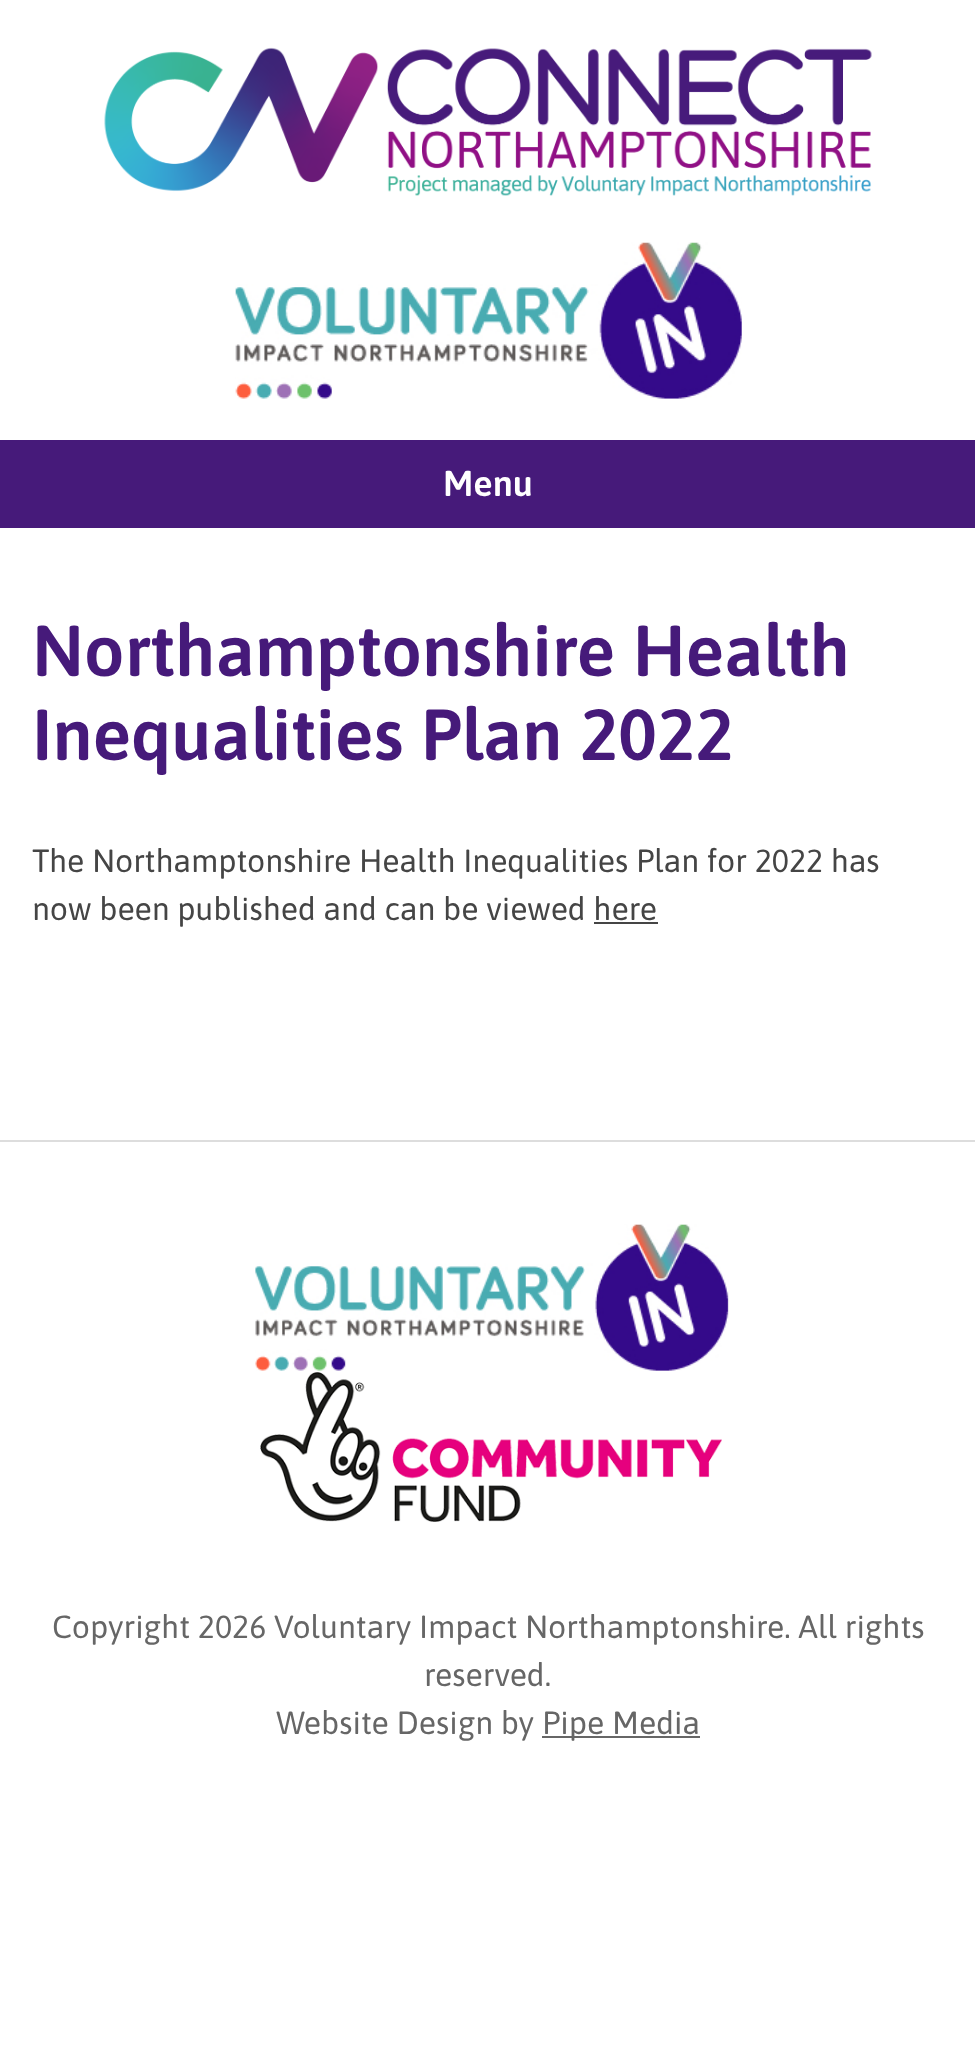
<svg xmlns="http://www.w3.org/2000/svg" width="975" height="2059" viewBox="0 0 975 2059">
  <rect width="100%" height="100%" fill="#fff"/>
  <image x="104" y="47" width="768" height="149" href="img/1.png"/>
  <image x="235" y="242" width="507" height="157" href="img/2.png"/>
  <path d="M0 440h975v88H0z" fill="#461a7a"/>
  <path d="M594 922h64v2H594z" fill="#454545"/>
  <path d="M0 1140h975v2H0z" fill="#ddd"/>
  <image x="255" y="1224" width="474" height="147" href="img/3.png"/>
  <image x="260" y="1372" width="462" height="150" href="img/4.png"/>
  <path d="M542 1736h158v2H542z" fill="#666"/>
  <text x="443" y="496" font-family="Asap" font-size="36" font-weight="600" fill="#fff">Menu</text>
  <g font-family="Asap" font-size="72" font-weight="600" fill="#461a7a">
    <text x="32" y="676">Northamptonshire Health</text>
    <text x="32" y="760">Inequalities Plan 2022</text>
  </g>
  <g font-family="Asap" font-size="32" fill="#454545">
    <text x="32" y="872">The Northamptonshire Health Inequalities Plan for 2022 has</text>
    <text x="32" y="920">now been published and can be viewed here</text>
  </g>
  <g font-family="Asap" font-size="32" fill="#666">
    <text x="52" y="1638">Copyright 2026 Voluntary Impact Northamptonshire. All rights</text>
    <text x="424" y="1686">reserved.</text>
    <text x="276" y="1734">Website Design by</text>
    <text x="542" y="1734">Pipe Media</text>
  </g>
</svg>
